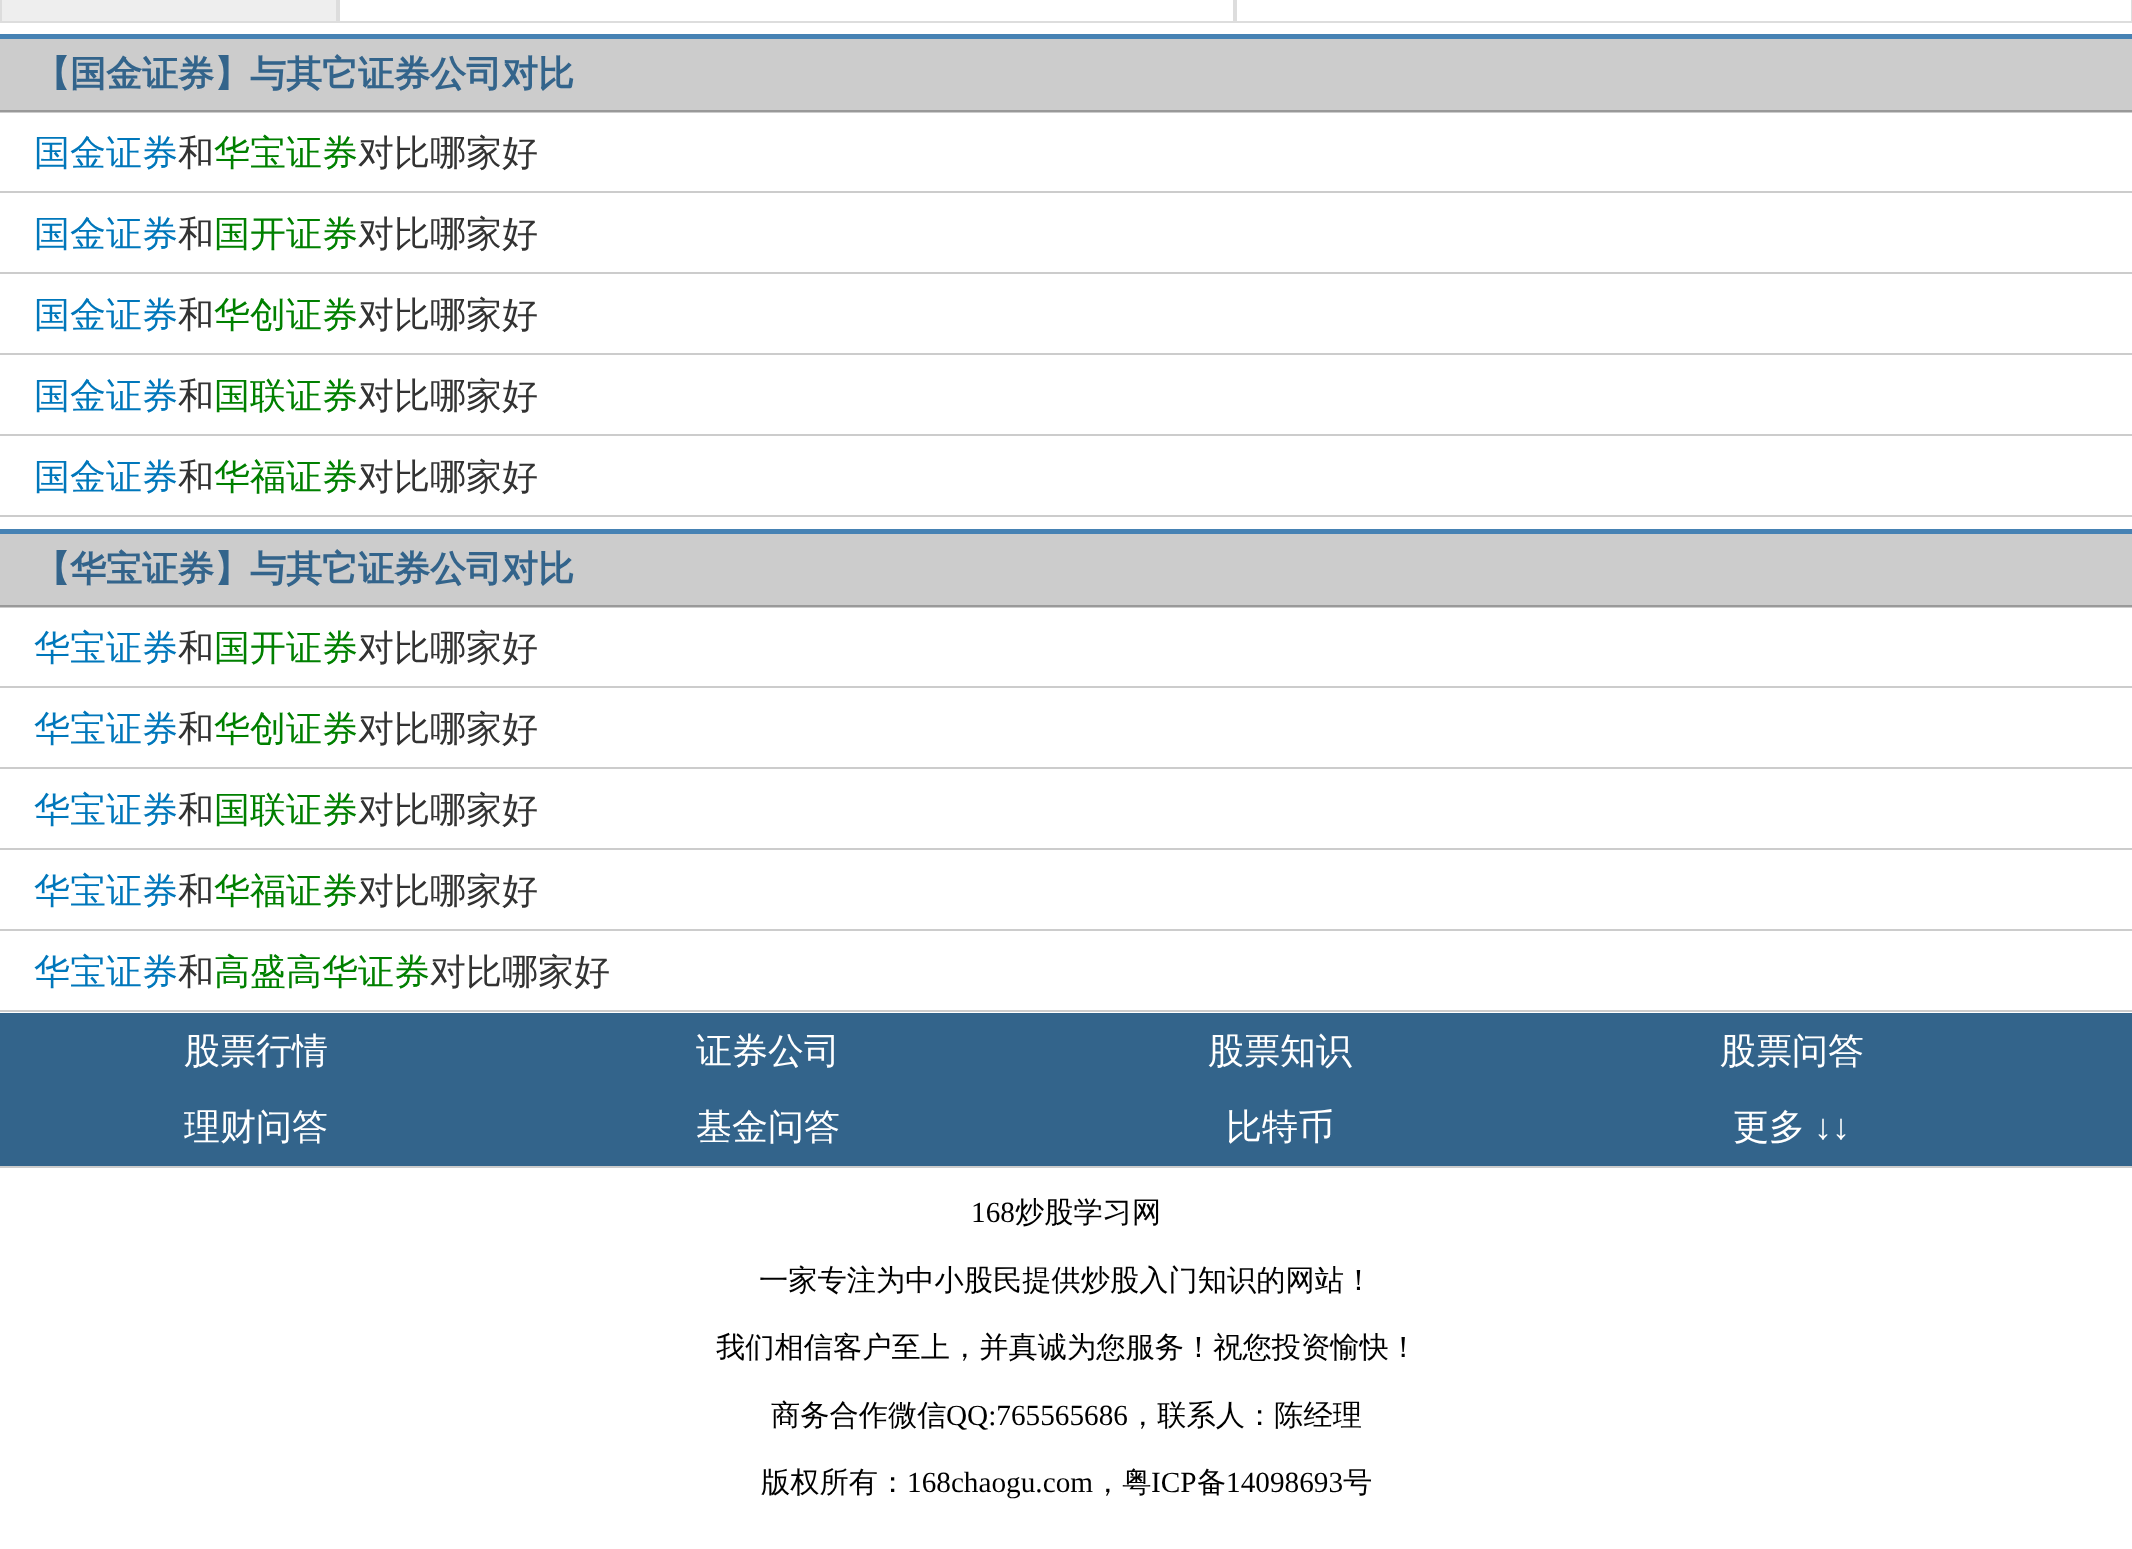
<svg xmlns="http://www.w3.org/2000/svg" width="2132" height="1549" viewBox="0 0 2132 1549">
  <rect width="100%" height="100%" fill="#fff"/>
  <path d="M1 -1h336v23H1z" fill="#eee" stroke="#ddd" stroke-width="2"/>
  <path d="M339 -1h895v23H339z" fill="none" stroke="#ddd" stroke-width="2"/>
  <path d="M1236 -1h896v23H1236z" fill="none" stroke="#ddd" stroke-width="2"/>
  <path d="M0 39h2132v74H0z" fill="#ccc"/>
  <path d="M0 34h2132v5H0z" fill="#4682b4"/>
  <path d="M0 110h2132v2H0z" fill="#999"/>
  <path d="M0 191h2132v2H0z" fill="#ccc"/>
  <path d="M0 272h2132v2H0z" fill="#ccc"/>
  <path d="M0 353h2132v2H0z" fill="#ccc"/>
  <path d="M0 434h2132v2H0z" fill="#ccc"/>
  <path d="M0 515h2132v2H0z" fill="#ccc"/>
  <path d="M0 534h2132v74H0z" fill="#ccc"/>
  <path d="M0 529h2132v5H0z" fill="#4682b4"/>
  <path d="M0 605h2132v2H0z" fill="#999"/>
  <path d="M0 686h2132v2H0z" fill="#ccc"/>
  <path d="M0 767h2132v2H0z" fill="#ccc"/>
  <path d="M0 848h2132v2H0z" fill="#ccc"/>
  <path d="M0 929h2132v2H0z" fill="#ccc"/>
  <path d="M0 1010h2132v2H0z" fill="#ccc"/>
  <path d="M0 1166h2132v2H0z" fill="#ccc"/>
  <path d="M0 1013h2132v153H0z" fill="#33648b"/>
  <text x="34" y="86" font-family="WenQuanYi Zen Hei" font-size="36" font-weight="bold" fill="#33648b">【国金证券】与其它证券公司对比</text>
  <text x="34" y="165" font-family="WenQuanYi Zen Hei" font-size="36" font-weight="500" fill="#07b">国金证券</text>
  <text x="178" y="165" font-family="WenQuanYi Zen Hei" font-size="36" font-weight="500" fill="#333">和</text>
  <text x="214" y="165" font-family="WenQuanYi Zen Hei" font-size="36" font-weight="500" fill="#008000">华宝证券</text>
  <text x="358" y="165" font-family="WenQuanYi Zen Hei" font-size="36" font-weight="500" fill="#333">对比哪家好</text>
  <text x="34" y="246" font-family="WenQuanYi Zen Hei" font-size="36" font-weight="500" fill="#07b">国金证券</text>
  <text x="178" y="246" font-family="WenQuanYi Zen Hei" font-size="36" font-weight="500" fill="#333">和</text>
  <text x="214" y="246" font-family="WenQuanYi Zen Hei" font-size="36" font-weight="500" fill="#008000">国开证券</text>
  <text x="358" y="246" font-family="WenQuanYi Zen Hei" font-size="36" font-weight="500" fill="#333">对比哪家好</text>
  <text x="34" y="327" font-family="WenQuanYi Zen Hei" font-size="36" font-weight="500" fill="#07b">国金证券</text>
  <text x="178" y="327" font-family="WenQuanYi Zen Hei" font-size="36" font-weight="500" fill="#333">和</text>
  <text x="214" y="327" font-family="WenQuanYi Zen Hei" font-size="36" font-weight="500" fill="#008000">华创证券</text>
  <text x="358" y="327" font-family="WenQuanYi Zen Hei" font-size="36" font-weight="500" fill="#333">对比哪家好</text>
  <text x="34" y="408" font-family="WenQuanYi Zen Hei" font-size="36" font-weight="500" fill="#07b">国金证券</text>
  <text x="178" y="408" font-family="WenQuanYi Zen Hei" font-size="36" font-weight="500" fill="#333">和</text>
  <text x="214" y="408" font-family="WenQuanYi Zen Hei" font-size="36" font-weight="500" fill="#008000">国联证券</text>
  <text x="358" y="408" font-family="WenQuanYi Zen Hei" font-size="36" font-weight="500" fill="#333">对比哪家好</text>
  <text x="34" y="489" font-family="WenQuanYi Zen Hei" font-size="36" font-weight="500" fill="#07b">国金证券</text>
  <text x="178" y="489" font-family="WenQuanYi Zen Hei" font-size="36" font-weight="500" fill="#333">和</text>
  <text x="214" y="489" font-family="WenQuanYi Zen Hei" font-size="36" font-weight="500" fill="#008000">华福证券</text>
  <text x="358" y="489" font-family="WenQuanYi Zen Hei" font-size="36" font-weight="500" fill="#333">对比哪家好</text>
  <text x="34" y="581" font-family="WenQuanYi Zen Hei" font-size="36" font-weight="bold" fill="#33648b">【华宝证券】与其它证券公司对比</text>
  <text x="34" y="660" font-family="WenQuanYi Zen Hei" font-size="36" font-weight="500" fill="#07b">华宝证券</text>
  <text x="178" y="660" font-family="WenQuanYi Zen Hei" font-size="36" font-weight="500" fill="#333">和</text>
  <text x="214" y="660" font-family="WenQuanYi Zen Hei" font-size="36" font-weight="500" fill="#008000">国开证券</text>
  <text x="358" y="660" font-family="WenQuanYi Zen Hei" font-size="36" font-weight="500" fill="#333">对比哪家好</text>
  <text x="34" y="741" font-family="WenQuanYi Zen Hei" font-size="36" font-weight="500" fill="#07b">华宝证券</text>
  <text x="178" y="741" font-family="WenQuanYi Zen Hei" font-size="36" font-weight="500" fill="#333">和</text>
  <text x="214" y="741" font-family="WenQuanYi Zen Hei" font-size="36" font-weight="500" fill="#008000">华创证券</text>
  <text x="358" y="741" font-family="WenQuanYi Zen Hei" font-size="36" font-weight="500" fill="#333">对比哪家好</text>
  <text x="34" y="822" font-family="WenQuanYi Zen Hei" font-size="36" font-weight="500" fill="#07b">华宝证券</text>
  <text x="178" y="822" font-family="WenQuanYi Zen Hei" font-size="36" font-weight="500" fill="#333">和</text>
  <text x="214" y="822" font-family="WenQuanYi Zen Hei" font-size="36" font-weight="500" fill="#008000">国联证券</text>
  <text x="358" y="822" font-family="WenQuanYi Zen Hei" font-size="36" font-weight="500" fill="#333">对比哪家好</text>
  <text x="34" y="903" font-family="WenQuanYi Zen Hei" font-size="36" font-weight="500" fill="#07b">华宝证券</text>
  <text x="178" y="903" font-family="WenQuanYi Zen Hei" font-size="36" font-weight="500" fill="#333">和</text>
  <text x="214" y="903" font-family="WenQuanYi Zen Hei" font-size="36" font-weight="500" fill="#008000">华福证券</text>
  <text x="358" y="903" font-family="WenQuanYi Zen Hei" font-size="36" font-weight="500" fill="#333">对比哪家好</text>
  <text x="34" y="984" font-family="WenQuanYi Zen Hei" font-size="36" font-weight="500" fill="#07b">华宝证券</text>
  <text x="178" y="984" font-family="WenQuanYi Zen Hei" font-size="36" font-weight="500" fill="#333">和</text>
  <text x="214" y="984" font-family="WenQuanYi Zen Hei" font-size="36" font-weight="500" fill="#008000">高盛高华证券</text>
  <text x="430" y="984" font-family="WenQuanYi Zen Hei" font-size="36" font-weight="500" fill="#333">对比哪家好</text>
  <g font-family="WenQuanYi Zen Hei" font-size="36" font-weight="500" fill="#fff">
    <text x="184" y="1063">股票行情</text>
    <text x="696" y="1063">证券公司</text>
    <text x="1208" y="1063">股票知识</text>
    <text x="1720" y="1063">股票问答</text>
    <text x="184" y="1139">理财问答</text>
    <text x="696" y="1139">基金问答</text>
    <text x="1226" y="1139">比特币</text>
    <text x="1733" y="1139">更多</text>
  </g>
  <text x="1814" y="1139" font-family="Liberation Serif" font-size="36" fill="#fff">↓↓</text>
  <text x="971" y="1222" font-family="Liberation Serif" font-size="29.25" fill="#000">168</text>
  <g font-family="WenQuanYi Zen Hei" font-size="29.25" font-weight="500" fill="#000">
    <text x="1015" y="1222">炒股学习网</text>
    <text x="759" y="1290">一家专注为中小股民提供炒股入门知识的网站！</text>
    <text x="716" y="1357">我们相信客户至上，并真诚为您服务！祝您投资愉快！</text>
    <text x="771" y="1425">商务合作微信</text>
  </g>
  <text x="946" y="1425" font-family="Liberation Serif" font-size="29.25" fill="#000">QQ:765565686</text>
  <g font-family="WenQuanYi Zen Hei" font-size="29.25" font-weight="500" fill="#000">
    <text x="1128" y="1425">，联系人：陈经理</text>
    <text x="761" y="1492">版权所有：</text>
  </g>
  <text x="907" y="1492" font-family="Liberation Serif" font-size="29.25" fill="#000">168chaogu.com</text>
  <text x="1093" y="1492" font-family="WenQuanYi Zen Hei" font-size="29.25" font-weight="500" fill="#000">，粤</text>
  <text x="1151" y="1492" font-family="Liberation Serif" font-size="29.25" fill="#000">ICP</text>
  <text x="1197" y="1492" font-family="WenQuanYi Zen Hei" font-size="29.25" font-weight="500" fill="#000">备</text>
  <text x="1226" y="1492" font-family="Liberation Serif" font-size="29.25" fill="#000">14098693</text>
  <text x="1343" y="1492" font-family="WenQuanYi Zen Hei" font-size="29.25" font-weight="500" fill="#000">号</text>
</svg>
